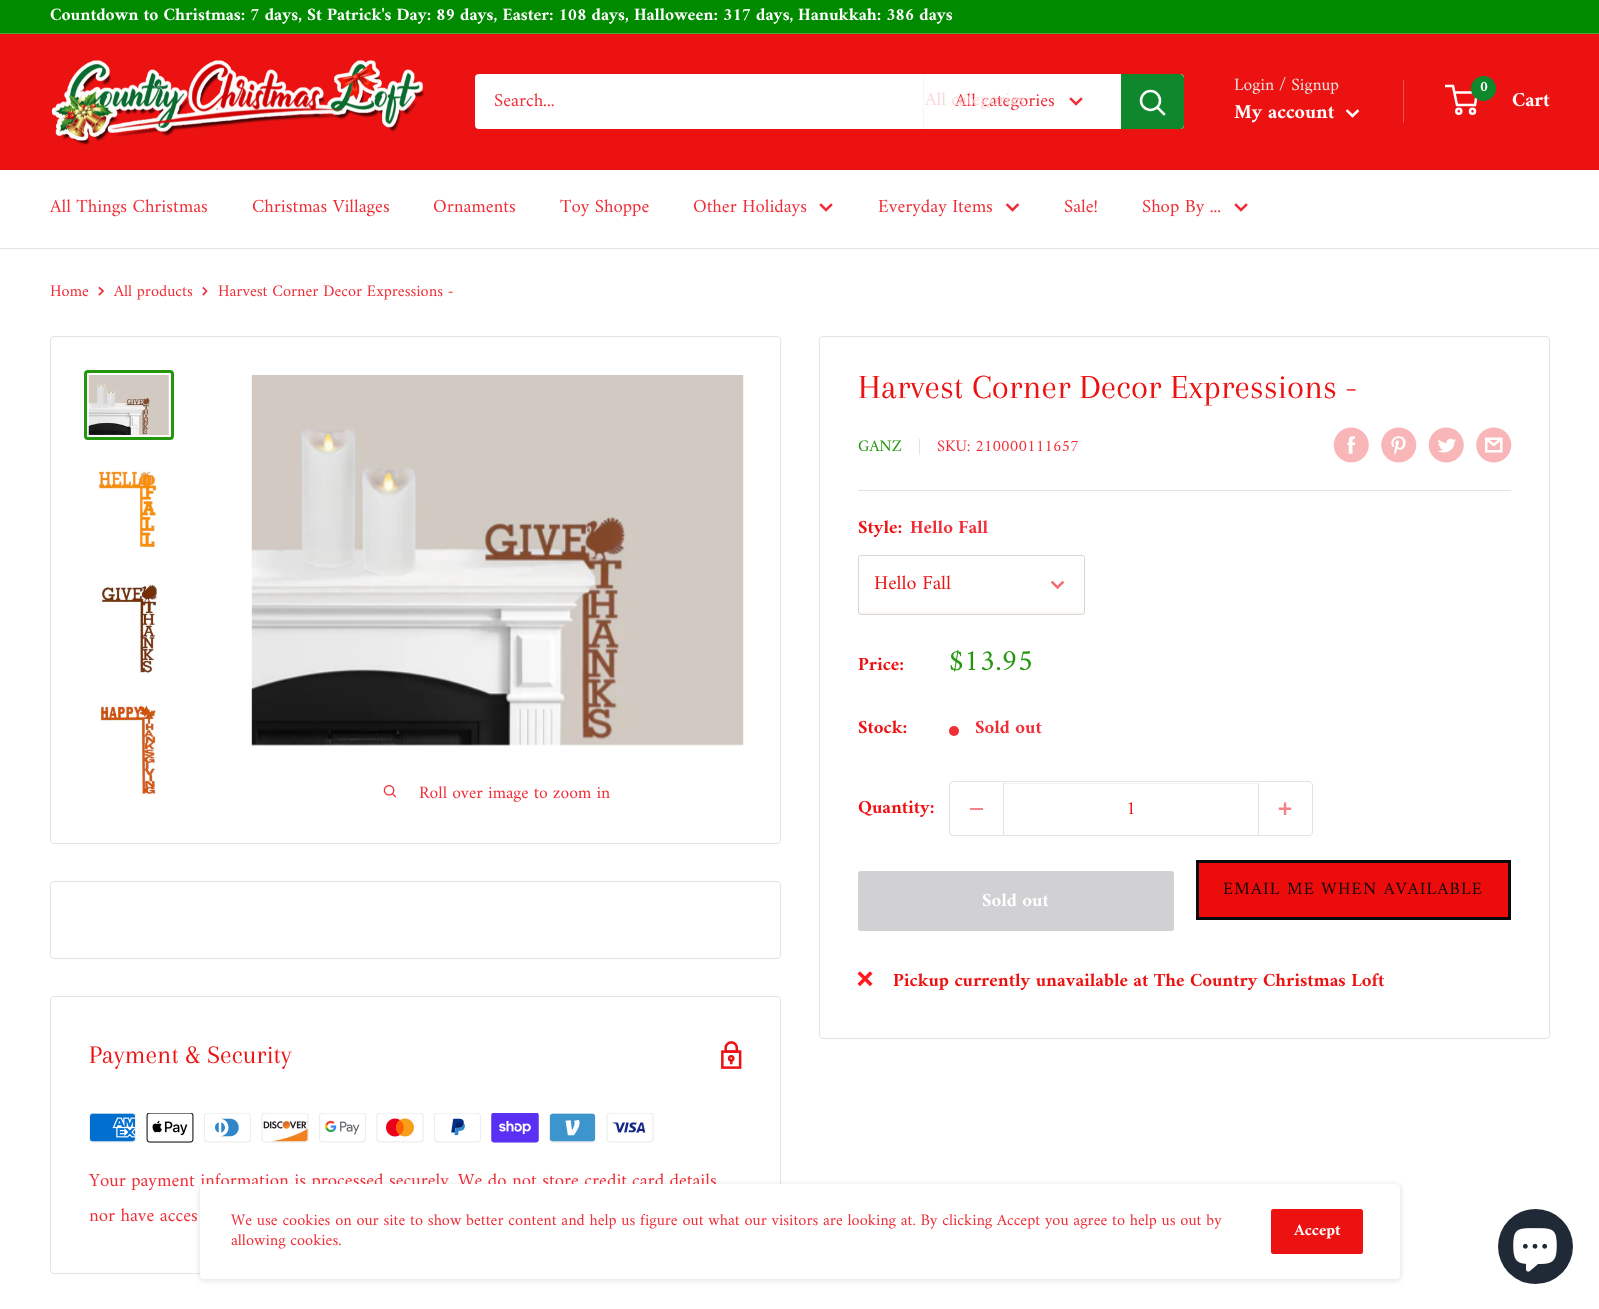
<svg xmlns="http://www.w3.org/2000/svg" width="1599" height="1309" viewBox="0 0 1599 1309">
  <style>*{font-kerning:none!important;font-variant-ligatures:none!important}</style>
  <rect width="100%" height="100%" fill="#fff"/>
  <path d="M0 0h1599v33H0z" fill="#008a00"/>
  <path d="M0 33h1599v1H0z" fill="#46a442"/>
  <path d="M0 34h1599v136H0z" fill="#ec1212"/>
  <image x="51" y="60" width="374" height="85" href="img/1.png"/>
  <rect x="475" y="74" width="709" height="55" rx="4" fill="#fff"/>
  <path d="M923 74h1v55H923z" fill="#f8f6f5"/>
  <path d="M1081 99L1076 104L1071 99" fill="none" stroke="#ef2e37" stroke-width="2.5" stroke-linecap="square"/>
  <path d="M1121 74H1180C1182 74 1184 76 1184 78V125C1184 127 1182 129 1180 129H1121Z" fill="#0f872c"/>
  <path d="M1164 114L1157.5 107.5" fill="none" stroke="#fff" stroke-width="2.5" stroke-linecap="square"/>
  <circle cx="1150.5" cy="100.5" r="9.5" fill="none" stroke="#fff" stroke-width="2.5"/>
  <path d="M1403 80h1v43H1403z" fill="#eb504f"/>
  <path d="M1357.5 111L1352.5 116L1347.5 111" fill="none" stroke="#fff" stroke-width="2.5" stroke-linecap="square"/>
  <circle cx="1458.8" cy="111.2" r="2.5" fill="none" stroke="#fff" stroke-width="2.5"/>
  <circle cx="1472.5" cy="111.2" r="2.5" fill="none" stroke="#fff" stroke-width="2.5"/>
  <path d="M1454 92.5H1477L1475 105H1457L1453 86H1445" fill="none" stroke="#fff" stroke-width="2.5"/>
  <circle cx="1483.5" cy="88.5" r="12.5" fill="#0f872c"/>
  <path d="M0 248h1599v1H0z" fill="#e7e2de"/>
  <path d="M831 205L826 210L821 205" fill="none" stroke="#ef2e37" stroke-width="2.5" stroke-linecap="square"/>
  <path d="M1017.5 205L1012.5 210L1007.5 205" fill="none" stroke="#ef2e37" stroke-width="2.5" stroke-linecap="square"/>
  <path d="M1246 205L1241 210L1236 205" fill="none" stroke="#ef2e37" stroke-width="2.5" stroke-linecap="square"/>
  <path d="M99.5 288L103 291L99.5 294.5" fill="none" stroke="#ef2e37" stroke-width="1.7" stroke-linecap="square"/>
  <path d="M203.5 288L206.5 291L203.5 294.5" fill="none" stroke="#ef2e37" stroke-width="1.7" stroke-linecap="square"/>
  <rect x="50.5" y="336.5" width="730" height="507" rx="3.5" fill="none" stroke="#e7e2de"/>
  <rect x="85.5" y="371.5" width="87" height="67" rx="2.5" fill="none" stroke="#24960e" stroke-width="3"/>
  <image x="88" y="375" width="81" height="60" href="img/2.png"/>
  <image x="98" y="470" width="60" height="79" href="img/3.png"/>
  <image x="99" y="584" width="59" height="91" href="img/4.png"/>
  <image x="99" y="703" width="59" height="93" href="img/5.png"/>
  <image x="251" y="375" width="493" height="371" href="img/6.png"/>
  <image x="383" y="785" width="14" height="13" href="img/7.png"/>
  <rect x="819.5" y="336.5" width="730" height="702" rx="3.5" fill="none" stroke="#e7e2de"/>
  <path d="M919 439h1v16H919z" fill="#e7e2de"/>
  <image x="1333" y="427" width="36" height="36" href="img/8.png"/>
  <image x="1381" y="427" width="36" height="36" href="img/9.png"/>
  <image x="1428" y="427" width="36" height="36" href="img/10.png"/>
  <image x="1476" y="427" width="36" height="36" href="img/11.png"/>
  <path d="M858 490h653v1H858z" fill="#e7e2de"/>
  <path d="M859 611V613C859 614 859 614 860 614H1083C1084 614 1084 614 1084 613V611C1084 612 1083 612 1082 612H859Z" fill="#f8f6f5"/>
  <rect x="858.5" y="555.5" width="226" height="59" rx="2" fill="none" stroke="#dcd5cf"/>
  <path d="M1062.5 582.5L1057.5 587.5L1052.5 582.5" fill="none" stroke="#f46d73" stroke-width="2.5" stroke-linecap="square"/>
  <circle cx="954" cy="731" r="5" fill="#ef2e37"/>
  <rect x="949.5" y="781.5" width="363" height="54" rx="3.5" fill="none" stroke="#e7e2de"/>
  <path d="M970 808h13v2H970z" fill="#f58287"/>
  <path d="M1004 783h254v1H1004z" fill="#f5f3f2"/>
  <path d="M1258 783h1v52H1258z" fill="#e7e2de"/>
  <path d="M1003 783h1v52H1003z" fill="#e7e2de"/>
  <image x="1278" y="802" width="14" height="13" href="img/12.png"/>
  <path d="M1197.5 861.5h312v57H1197.5z" fill="#ec0c0c" stroke="#0a0a0a" stroke-width="3"/>
  <rect x="858.5" y="871.5" width="315" height="59" rx="2" fill="#d1d1d4" stroke="#d1d1d4"/>
  <image x="857" y="971" width="16" height="16" href="img/13.png"/>
  <rect x="50.5" y="881.5" width="730" height="77" rx="3.5" fill="none" stroke="#e7e2de"/>
  <rect x="50.5" y="996.5" width="730" height="277" rx="3.5" fill="none" stroke="#e7e2de"/>
  <image x="721" y="1041" width="21" height="28" href="img/14.png"/>
  <image x="89" y="1113" width="47" height="30" href="img/15.png"/>
  <image x="146" y="1113" width="48" height="30" href="img/16.png"/>
  <image x="204" y="1113" width="47" height="30" href="img/17.png"/>
  <image x="261" y="1113" width="48" height="30" href="img/18.png"/>
  <image x="319" y="1113" width="47" height="30" href="img/19.png"/>
  <image x="376" y="1113" width="48" height="30" href="img/20.png"/>
  <image x="434" y="1113" width="47" height="30" href="img/21.png"/>
  <image x="491" y="1113" width="48" height="30" href="img/22.png"/>
  <image x="549" y="1113" width="47" height="30" href="img/23.png"/>
  <image x="606" y="1113" width="48" height="30" href="img/24.png"/>
  <rect x="199" y="1184" width="1202" height="97" rx="5" fill="#0000001a" filter="blur(2.5px)"/>
  <circle cx="1535.5" cy="1246.5" r="37.5" fill="#202a36"/>
  <image x="1513" y="1228" width="44" height="44" href="img/25.png"/>
  <text x="50" y="20" font-family="Amiri" font-size="17.5" font-weight="bold" fill="#fff">Countdown to Christmas: 7 days, St Patrick's Day: 89 days, Easter: 108 days, Halloween: 317 days,</text>
  <text x="798" y="20" font-family="Amiri" font-size="17.5" font-weight="bold" fill="#fff">Hanukkah: 386 days</text>
  <g font-family="Amiri" font-size="18.75" fill="#ef2e37">
    <text x="494" y="106">Search...</text>
    <text x="955" y="106">All categories</text>
  </g>
  <text x="925" y="105" font-family="Amiri" font-size="18.75" fill="#fcd8da">All categories</text>
  <text x="1234" y="90" font-family="Amiri" font-size="17.5" fill="#e9e2dd">Login / Signup</text>
  <text x="1234" y="118" font-family="Amiri" font-size="20" font-weight="bold" fill="#fff">My account</text>
  <text x="1480" y="91" font-family="Amiri" font-size="15" font-weight="bold" fill="#fff">0</text>
  <text x="1512" y="106" font-family="Amiri" font-size="20" font-weight="bold" fill="#fff">Cart</text>
  <g font-family="Amiri" font-size="18.75" fill="#ef2e37">
    <text x="50" y="212">All Things Christmas</text>
    <text x="252" y="212">Christmas Villages</text>
    <text x="433" y="212">Ornaments</text>
    <text x="560" y="212">Toy Shoppe</text>
    <text x="693" y="212">Other Holidays</text>
    <text x="878" y="212">Everyday Items</text>
    <text x="1064" y="212">Sale!</text>
    <text x="1142" y="212">Shop By ...</text>
  </g>
  <g font-family="Amiri" font-size="16.25" fill="#ef2e37">
    <text x="50" y="296">Home</text>
    <text x="114" y="296">All products</text>
    <text x="218" y="296">Harvest Corner Decor Expressions -</text>
  </g>
  <text x="419" y="798" font-family="Amiri" font-size="17.5" fill="#ef2e37">Roll over image to zoom in</text>
  <text x="858" y="398" font-family="Arapey" font-size="35" fill="#ec1212">Harvest Corner Decor Expressions -</text>
  <text x="858" y="451" font-family="Amiri" font-size="16.25" fill="#24960e">GANZ</text>
  <text x="937" y="451" font-family="Amiri" font-size="16.25" fill="#ef2e37">SKU: 210000111657</text>
  <text x="858" y="533" font-family="Amiri" font-size="18.75" font-weight="bold" fill="#ec1212">Style:</text>
  <text x="910" y="533" font-family="Amiri" font-size="18.75" font-weight="bold" fill="#ef2e37">Hello Fall</text>
  <text x="874" y="589" font-family="Amiri" font-size="20" fill="#ec1212">Hello Fall</text>
  <text x="858" y="670" font-family="Amiri" font-size="18.75" font-weight="bold" fill="#ec1212">Price:</text>
  <text x="949" y="670" font-family="Amiri" font-size="30" fill="#24960e">$13.95</text>
  <text x="858" y="733" font-family="Amiri" font-size="18.75" font-weight="bold" fill="#ec1212">Stock:</text>
  <text x="975" y="733" font-family="Amiri" font-size="18.75" font-weight="bold" fill="#ef2e37">Sold out</text>
  <text x="858" y="813" font-family="Amiri" font-size="18.75" font-weight="bold" fill="#ec1212">Quantity:</text>
  <text x="1126" y="814" font-family="Amiri" font-size="18.75" fill="#ec1212">1</text>
  <text x="1223" y="894" font-family="Amiri" font-size="17.5" letter-spacing="1.25" fill="#0a0a0a">EMAIL ME WHEN AVAILABLE</text>
  <text x="982" y="906" font-family="Amiri" font-size="18.75" font-weight="bold" fill="#fff">Sold out</text>
  <text x="893" y="986" font-family="Amiri" font-size="18.75" font-weight="bold" fill="#ec1212">Pickup currently unavailable at The Country Christmas Loft</text>
  <text x="89" y="1063" font-family="Arapey" font-size="26.25" fill="#ec1212">Payment &amp; Security</text>
  <g font-family="Amiri" font-size="18.75" fill="#ef2e37">
    <text x="89" y="1186">Your payment information is processed securely. We do not store credit</text>
    <text x="632" y="1186">card details</text>
    <text x="89" y="1221">nor have acces</text>
  </g>
  <rect x="200" y="1184" width="1200" height="95" rx="4" fill="#fff"/>
  <g font-family="Amiri" font-size="16.25" fill="#ef2e37">
    <text x="231" y="1225">We use cookies on our site to show better content and help us figure out what our visitors are looking at. By clicking Accept you agree to help us out by</text>
    <text x="231" y="1245">allowing cookies.</text>
  </g>
  <rect x="1271" y="1209" width="92" height="45" rx="2.5" fill="#ec1212"/>
  <text x="1294" y="1235" font-family="Amiri" font-size="16.25" font-weight="bold" fill="#fff">Accept</text>
</svg>
